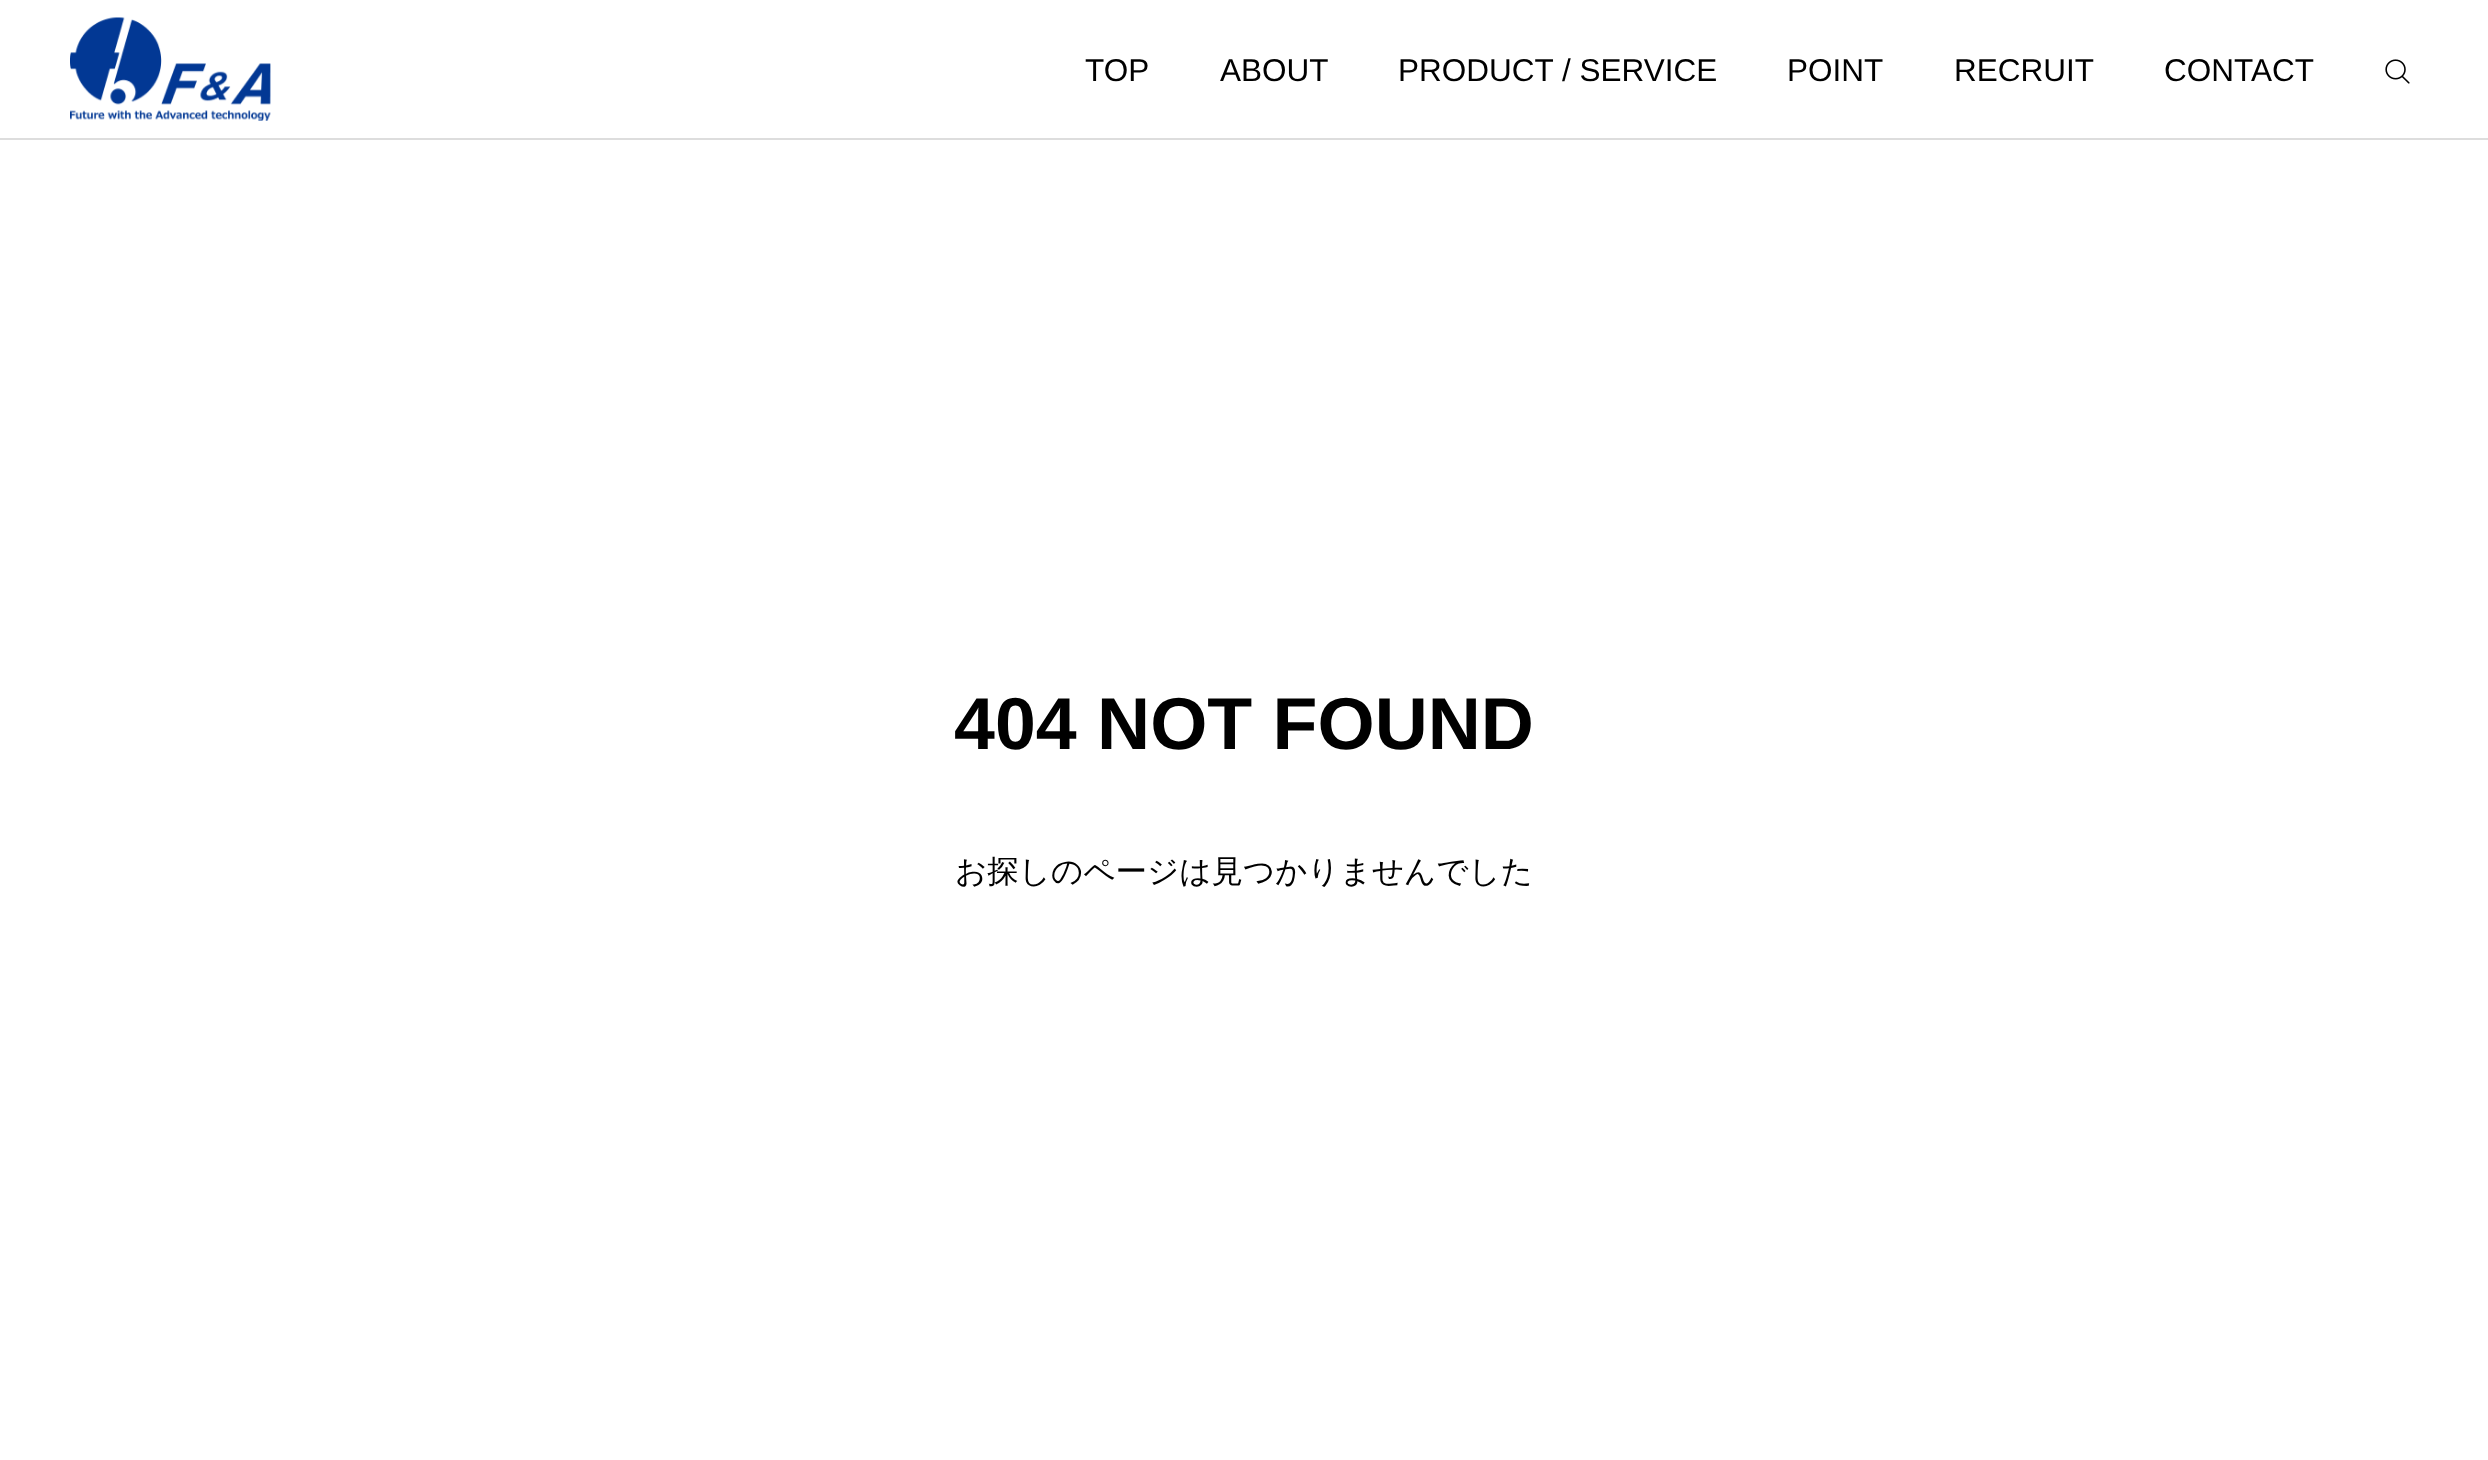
<svg xmlns="http://www.w3.org/2000/svg" width="2488" height="1460" viewBox="0 0 2488 1460">
  <rect width="100%" height="100%" fill="#fff"/>
  <path d="M0 138h2488v2H0z" fill="#ddd"/>
  <image x="70" y="17" width="201" height="104" href="img/1.png"/>
  <image x="2385" y="59" width="25" height="25" href="img/2.png"/>
  <g font-family="Liberation Sans" font-size="31.5" fill="#000">
    <text x="1085" y="81">TOP</text>
    <text x="1220" y="81">ABOUT</text>
    <text x="1398" y="81">PRODUCT / SERVICE</text>
    <text x="1787" y="81">POINT</text>
    <text x="1954" y="81">RECRUIT</text>
    <text x="2164" y="81">CONTACT</text>
  </g>
  <text x="954" y="749" font-family="Liberation Sans" font-size="73.5" font-weight="bold" fill="#000">404 NOT FOUND</text>
  <text x="955" y="882" font-family="WenQuanYi Zen Hei" font-size="31.5" font-weight="500" fill="#000">お探しのページは見つかりませんでした</text>
</svg>
